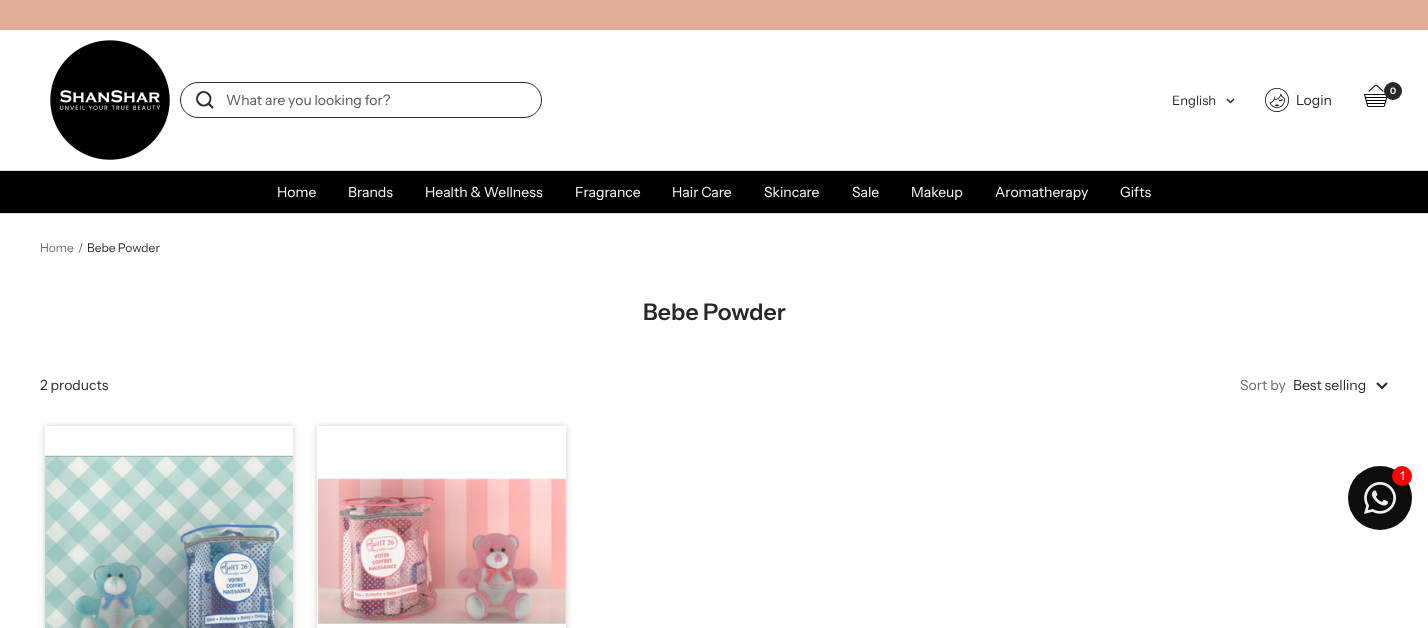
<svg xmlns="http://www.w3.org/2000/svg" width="1428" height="628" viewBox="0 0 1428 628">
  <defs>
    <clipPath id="clip1"><path d="M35 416H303V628H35ZM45 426H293V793H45Z" clip-rule="evenodd"/></clipPath>
    <clipPath id="clip2"><path d="M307 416H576V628H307ZM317 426H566V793H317Z" clip-rule="evenodd"/></clipPath>
  </defs>
  <rect width="100%" height="100%" fill="#fff"/>
  <path d="M0 0h1428v30H0z" fill="#e2ac9a"/>
  <path d="M0 213h1428v1H0z" fill="#dfdfdf"/>
  <image x="50" y="40" width="120" height="120" href="img/1.png"/>
  <rect x="180.5" y="82.5" width="361" height="35" rx="17.5" fill="none" stroke="#282828"/>
  <path d="M208.5 103.5C214.5 97 205.5 88 199 94C193 100.5 202 109.5 208.5 103.5ZM208.5 103.5L213 108" fill="none" stroke="#282828" stroke-width="2"/>
  <path d="M1227 99L1230.5 102.5L1234 99" fill="none" stroke="#282828" stroke-width="1.5"/>
  <image x="1364" y="85" width="24" height="22" href="img/2.png"/>
  <circle cx="1393" cy="91" r="9" fill="#282828"/>
  <image x="1265" y="88" width="24" height="24" href="img/3.png"/>
  <path d="M0 171h1428v42H0z" fill="#000"/>
  <path d="M0 170h1428v1H0z" fill="#dfdfdf"/>
  <path d="M1377 383L1382 388L1387 383" fill="none" stroke="#282828" stroke-width="2"/>
  <g clip-path="url(#clip1)">
    <path d="M45 426h248v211H45z" fill="#00000033" filter="blur(3px)"/>
  </g>
  <image x="45" y="455" width="248" height="173" href="img/4.png"/>
  <g clip-path="url(#clip2)">
    <path d="M317 426h249v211H317z" fill="#00000033" filter="blur(3px)"/>
  </g>
  <image x="317" y="478" width="249" height="146" href="img/5.png"/>
  <circle cx="1380" cy="498" r="32" fill="#0f0e0e"/>
  <image x="1364" y="482" width="32" height="32" href="img/6.png"/>
  <circle cx="1402" cy="476" r="10" fill="#ff0303"/>
  <text x="226" y="105" font-family="Instrument Sans" font-size="14" fill="#535353">What are you looking for?</text>
  <text x="1172" y="105" font-family="Instrument Sans" font-size="13" fill="#282828">English</text>
  <text x="1390" y="94" font-family="Instrument Sans" font-size="9" font-weight="600" fill="#fff">0</text>
  <text x="1296" y="105" font-family="Instrument Sans" font-size="14" fill="#282828">Login</text>
  <g font-family="Instrument Sans" font-size="14" fill="#fff">
    <text x="277" y="197">Home</text>
    <text x="348" y="197">Brands</text>
    <text x="425" y="197">Health &amp; Wellness</text>
    <text x="575" y="197">Fragrance</text>
    <text x="672" y="197">Hair Care</text>
    <text x="764" y="197">Skincare</text>
    <text x="852" y="197">Sale</text>
    <text x="911" y="197">Makeup</text>
    <text x="995" y="197">Aromatherapy</text>
    <text x="1120" y="197">Gifts</text>
  </g>
  <g font-family="Instrument Sans" font-size="12" fill="#696969">
    <text x="40" y="252">Home</text>
    <text x="78" y="252">/</text>
  </g>
  <text x="87" y="252" font-family="Instrument Sans" font-size="12" fill="#282828">Bebe Powder</text>
  <text x="643" y="320" font-family="Instrument Sans" font-size="23" font-weight="600" fill="#282828">Bebe Powder</text>
  <text x="40" y="390" font-family="Instrument Sans" font-size="14" fill="#282828">2 products</text>
  <text x="1240" y="390" font-family="Instrument Sans" font-size="14" fill="#696969">Sort by</text>
  <text x="1293" y="390" font-family="Instrument Sans" font-size="14" fill="#282828">Best selling</text>
  <text x="1400" y="480" font-family="Instrument Sans" font-size="12" fill="#fff">1</text>
</svg>
